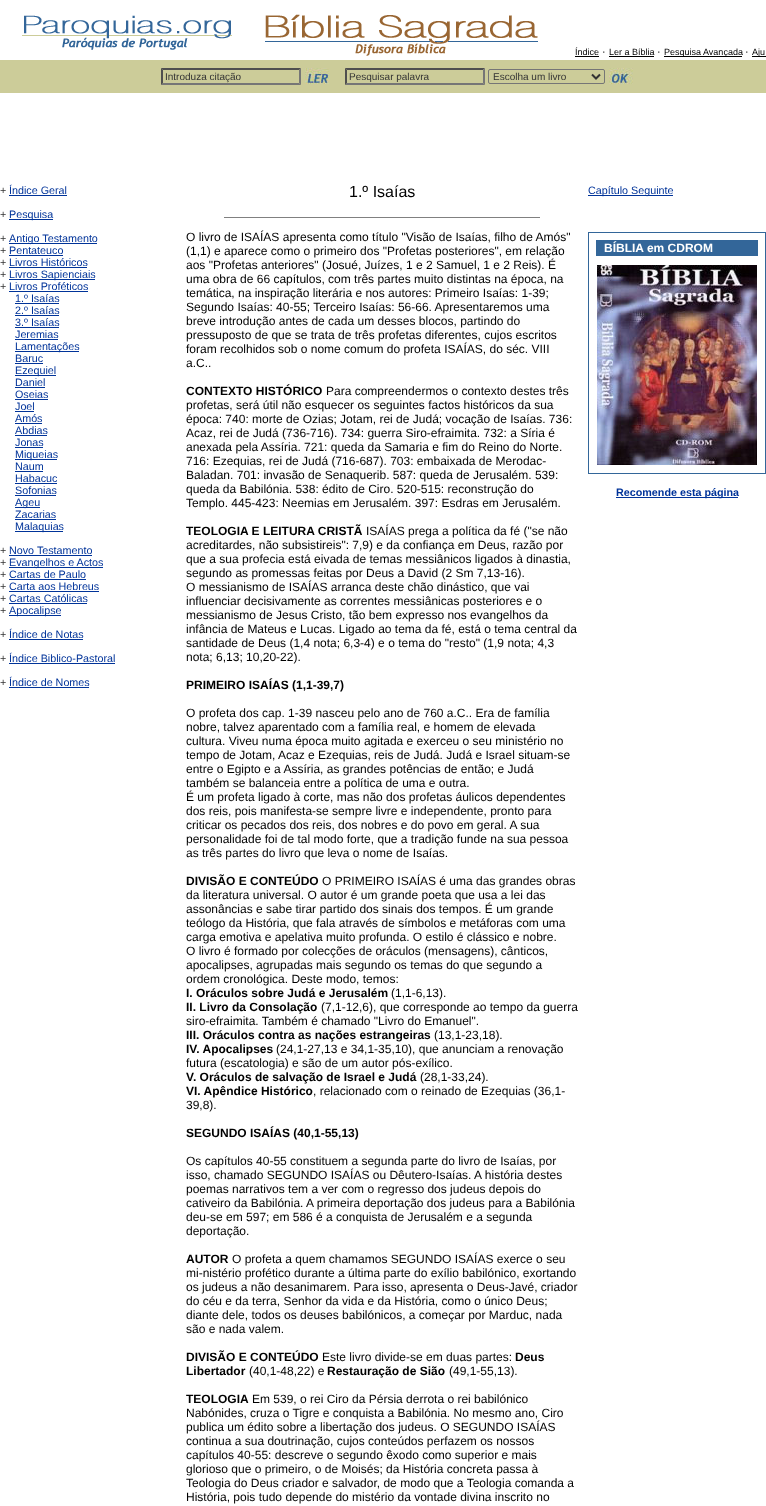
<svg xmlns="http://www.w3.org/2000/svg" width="766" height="1506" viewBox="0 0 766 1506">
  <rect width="100%" height="100%" fill="#fff"/>
  <image x="22" y="15" width="210" height="35" href="img/1.png"/>
  <image x="265" y="14" width="273" height="42" href="img/2.png"/>
  <path d="M575 56h24v1H575z" fill="#000"/>
  <path d="M609 56h45v1H609z" fill="#000"/>
  <path d="M664 56h78v1H664z" fill="#000"/>
  <path d="M752 56h14v1H752z" fill="#000"/>
  <path d="M0 60h766v33H0z" fill="#cc9"/>
  <path d="M161 68H301L299 70H163Z" fill="#4f4f4f"/>
  <path d="M301 68V85L299 83V70Z" fill="#767676"/>
  <path d="M301 85H161L163 83H299Z" fill="#767676"/>
  <path d="M161 85V68L163 70V83Z" fill="#4f4f4f"/>
  <image x="305" y="68" width="24" height="16" href="img/3.png"/>
  <path d="M345 68H485L483 70H347Z" fill="#4f4f4f"/>
  <path d="M485 68V85L483 83V70Z" fill="#767676"/>
  <path d="M485 85H345L347 83H483Z" fill="#767676"/>
  <path d="M345 85V68L347 70V83Z" fill="#4f4f4f"/>
  <rect x="488.5" y="69.5" width="116" height="14" rx="1.5" fill="none" stroke="#767676"/>
  <path d="M592 74.5L596 78.5L600 74.5" fill="none" stroke="#333" stroke-width="2"/>
  <image x="609" y="68" width="24" height="16" href="img/4.png"/>
  <path d="M9 195h58v1H9z" fill="#039"/>
  <path d="M9 219h44v1H9z" fill="#039"/>
  <path d="M9 243h88v1H9z" fill="#039"/>
  <path d="M9 255h54v1H9z" fill="#039"/>
  <path d="M9 267h78v1H9z" fill="#039"/>
  <path d="M9 279h86v1H9z" fill="#039"/>
  <path d="M9 291h79v1H9z" fill="#039"/>
  <path d="M15 303h44v1H15z" fill="#039"/>
  <path d="M15 315h44v1H15z" fill="#039"/>
  <path d="M15 327h44v1H15z" fill="#039"/>
  <path d="M15 339h43v1H15z" fill="#039"/>
  <path d="M15 351h64v1H15z" fill="#039"/>
  <path d="M15 363h28v1H15z" fill="#039"/>
  <path d="M15 375h41v1H15z" fill="#039"/>
  <path d="M15 387h30v1H15z" fill="#039"/>
  <path d="M15 399h33v1H15z" fill="#039"/>
  <path d="M15 411h19v1H15z" fill="#039"/>
  <path d="M15 423h27v1H15z" fill="#039"/>
  <path d="M15 435h32v1H15z" fill="#039"/>
  <path d="M15 447h28v1H15z" fill="#039"/>
  <path d="M15 459h42v1H15z" fill="#039"/>
  <path d="M15 471h28v1H15z" fill="#039"/>
  <path d="M15 483h42v1H15z" fill="#039"/>
  <path d="M15 495h41v1H15z" fill="#039"/>
  <path d="M15 507h25v1H15z" fill="#039"/>
  <path d="M15 519h41v1H15z" fill="#039"/>
  <path d="M15 531h48v1H15z" fill="#039"/>
  <path d="M9 555h83v1H9z" fill="#039"/>
  <path d="M9 567h94v1H9z" fill="#039"/>
  <path d="M9 579h77v1H9z" fill="#039"/>
  <path d="M9 591h90v1H9z" fill="#039"/>
  <path d="M9 603h78v1H9z" fill="#039"/>
  <path d="M9 615h52v1H9z" fill="#039"/>
  <path d="M9 639h74v1H9z" fill="#039"/>
  <path d="M9 663h106v1H9z" fill="#039"/>
  <path d="M9 687h80v1H9z" fill="#039"/>
  <path d="M224 217h316v1H224z" fill="#808080"/>
  <path d="M588 195h85v1H588z" fill="#039"/>
  <path d="M588 232h178v242H588z" fill="#369"/>
  <path d="M589 233h176v240H589z" fill="#fff"/>
  <path d="M596 240h162v16H596z" fill="#369"/>
  <image x="597" y="265" width="160" height="200" href="img/5.png"/>
  <path d="M616 497h122v1H616z" fill="#039"/>
  <text x="575" y="55" font-family="Liberation Sans" font-size="9" fill="#000">Índice</text>
  <text x="602" y="55" font-family="Liberation Sans" font-size="10.75" fill="#000">·</text>
  <text x="609" y="55" font-family="Liberation Sans" font-size="9" fill="#000">Ler a Bíblia</text>
  <text x="657" y="55" font-family="Liberation Sans" font-size="10.75" fill="#000">·</text>
  <text x="664" y="55" font-family="Liberation Sans" font-size="9" fill="#000">Pesquisa Avançada</text>
  <text x="745" y="55" font-family="Liberation Sans" font-size="10.75" fill="#000">·</text>
  <text x="752" y="55" font-family="Liberation Sans" font-size="9" fill="#000">Aju</text>
  <g font-family="Liberation Sans" font-size="10" fill="#333">
    <text x="165" y="80">Introduza citação</text>
    <text x="349" y="80">Pesquisar palavra</text>
    <text x="493" y="80">Escolha um livro</text>
  </g>
  <text x="0" y="194" font-family="Liberation Sans" font-size="10.75" fill="#333">+</text>
  <text x="9" y="194" font-family="Liberation Sans" font-size="10.75" fill="#039">Índice Geral</text>
  <text x="0" y="218" font-family="Liberation Sans" font-size="10.75" fill="#333">+</text>
  <text x="9" y="218" font-family="Liberation Sans" font-size="10.75" fill="#039">Pesquisa</text>
  <text x="0" y="242" font-family="Liberation Sans" font-size="10.75" fill="#333">+</text>
  <text x="9" y="242" font-family="Liberation Sans" font-size="10.75" fill="#039">Antigo Testamento</text>
  <text x="0" y="254" font-family="Liberation Sans" font-size="10.75" fill="#333">+</text>
  <text x="9" y="254" font-family="Liberation Sans" font-size="10.75" fill="#039">Pentateuco</text>
  <text x="0" y="266" font-family="Liberation Sans" font-size="10.75" fill="#333">+</text>
  <text x="9" y="266" font-family="Liberation Sans" font-size="10.75" fill="#039">Livros Históricos</text>
  <text x="0" y="278" font-family="Liberation Sans" font-size="10.75" fill="#333">+</text>
  <text x="9" y="278" font-family="Liberation Sans" font-size="10.75" fill="#039">Livros Sapienciais</text>
  <text x="0" y="290" font-family="Liberation Sans" font-size="10.75" fill="#333">+</text>
  <g font-family="Liberation Sans" font-size="10.75" fill="#039">
    <text x="9" y="290">Livros Proféticos</text>
    <text x="15" y="302">1.º Isaías</text>
    <text x="15" y="314">2.º Isaías</text>
    <text x="15" y="326">3.º Isaías</text>
    <text x="15" y="338">Jeremias</text>
    <text x="15" y="350">Lamentações</text>
    <text x="15" y="362">Baruc</text>
    <text x="15" y="374">Ezequiel</text>
    <text x="15" y="386">Daniel</text>
    <text x="15" y="398">Oseias</text>
    <text x="15" y="410">Joel</text>
    <text x="15" y="422">Amós</text>
    <text x="15" y="434">Abdias</text>
    <text x="15" y="446">Jonas</text>
    <text x="15" y="458">Miqueias</text>
    <text x="15" y="470">Naum</text>
    <text x="15" y="482">Habacuc</text>
    <text x="15" y="494">Sofonias</text>
    <text x="15" y="506">Ageu</text>
    <text x="15" y="518">Zacarias</text>
    <text x="15" y="530">Malaquias</text>
  </g>
  <text x="0" y="554" font-family="Liberation Sans" font-size="10.75" fill="#333">+</text>
  <text x="9" y="554" font-family="Liberation Sans" font-size="10.75" fill="#039">Novo Testamento</text>
  <text x="0" y="566" font-family="Liberation Sans" font-size="10.75" fill="#333">+</text>
  <text x="9" y="566" font-family="Liberation Sans" font-size="10.75" fill="#039">Evangelhos e Actos</text>
  <text x="0" y="578" font-family="Liberation Sans" font-size="10.75" fill="#333">+</text>
  <text x="9" y="578" font-family="Liberation Sans" font-size="10.75" fill="#039">Cartas de Paulo</text>
  <text x="0" y="590" font-family="Liberation Sans" font-size="10.75" fill="#333">+</text>
  <text x="9" y="590" font-family="Liberation Sans" font-size="10.75" fill="#039">Carta aos Hebreus</text>
  <text x="0" y="602" font-family="Liberation Sans" font-size="10.75" fill="#333">+</text>
  <text x="9" y="602" font-family="Liberation Sans" font-size="10.75" fill="#039">Cartas Católicas</text>
  <text x="0" y="614" font-family="Liberation Sans" font-size="10.75" fill="#333">+</text>
  <text x="9" y="614" font-family="Liberation Sans" font-size="10.75" fill="#039">Apocalipse</text>
  <text x="0" y="638" font-family="Liberation Sans" font-size="10.75" fill="#333">+</text>
  <text x="9" y="638" font-family="Liberation Sans" font-size="10.75" fill="#039">Índice de Notas</text>
  <text x="0" y="662" font-family="Liberation Sans" font-size="10.75" fill="#333">+</text>
  <text x="9" y="662" font-family="Liberation Sans" font-size="10.75" fill="#039">Índice Biblico-Pastoral</text>
  <text x="0" y="686" font-family="Liberation Sans" font-size="10.75" fill="#333">+</text>
  <text x="9" y="686" font-family="Liberation Sans" font-size="10.75" fill="#039">Índice de Nomes</text>
  <text x="349" y="197" font-family="Liberation Sans" font-size="16" fill="#000">1.º Isaías</text>
  <g font-family="Liberation Sans" font-size="12" fill="#000">
    <text x="186" y="241">O livro de ISAÍAS apresenta como título "Visão de Isaías, filho de Amós"</text>
    <text x="186" y="255">(1,1) e aparece como o primeiro dos "Profetas posteriores", em relação</text>
    <text x="186" y="269">aos "Profetas anteriores" (Josué, Juízes, 1 e 2 Samuel, 1 e 2 Reis). É</text>
    <text x="186" y="283">uma obra de 66 capítulos, com três partes muito distintas na época, na</text>
    <text x="186" y="297">temática, na inspiração literária e nos autores: Primeiro Isaías: 1-39;</text>
    <text x="186" y="311">Segundo Isaías: 40-55; Terceiro Isaías: 56-66. Apresentaremos uma</text>
    <text x="186" y="325">breve introdução antes de cada um desses blocos, partindo do</text>
    <text x="186" y="339">pressuposto de que se trata de três profetas diferentes, cujos escritos</text>
    <text x="186" y="353">foram recolhidos sob o nome comum do profeta ISAÍAS, do séc. VIII</text>
    <text x="186" y="367">a.C..</text>
  </g>
  <text x="186" y="395" font-family="Liberation Sans" font-size="12" font-weight="bold" fill="#000">CONTEXTO HISTÓRICO</text>
  <g font-family="Liberation Sans" font-size="12" fill="#000">
    <text x="326" y="395">Para compreendermos o contexto destes três</text>
    <text x="186" y="409">profetas, será útil não esquecer os seguintes factos históricos da sua</text>
    <text x="186" y="423">época: 740: morte de Ozias; Jotam, rei de Judá; vocação de Isaías. 736:</text>
    <text x="186" y="437">Acaz, rei de Judá (736-716). 734: guerra Siro-efraimita. 732: a Síria é</text>
    <text x="186" y="451">anexada pela Assíria. 721: queda da Samaria e fim do Reino do Norte.</text>
    <text x="186" y="465">716: Ezequias, rei de Judá (716-687). 703: embaixada de Merodac-</text>
    <text x="186" y="479">Baladan. 701: invasão de Senaquerib. 587: queda de Jerusalém. 539:</text>
    <text x="186" y="493">queda da Babilónia. 538: édito de Ciro. 520-515: reconstrução do</text>
    <text x="186" y="507">Templo. 445-423: Neemias em Jerusalém. 397: Esdras em Jerusalém.</text>
  </g>
  <text x="186" y="535" font-family="Liberation Sans" font-size="12" font-weight="bold" fill="#000">TEOLOGIA E LEITURA CRISTÃ</text>
  <g font-family="Liberation Sans" font-size="12" fill="#000">
    <text x="366" y="535">ISAÍAS prega a política da fé ("se não</text>
    <text x="186" y="549">acreditardes, não subsistireis": 7,9) e da confiança em Deus, razão por</text>
    <text x="186" y="563">que a sua profecia está eivada de temas messiânicos ligados à dinastia,</text>
    <text x="186" y="577">segundo as promessas feitas por Deus a David (2 Sm 7,13-16).</text>
    <text x="186" y="591">O messianismo de ISAÍAS arranca deste chão dinástico, que vai</text>
    <text x="186" y="605">influenciar decisivamente as correntes messiânicas posteriores e o</text>
    <text x="186" y="619">messianismo de Jesus Cristo, tão bem expresso nos evangelhos da</text>
    <text x="186" y="633">infância de Mateus e Lucas. Ligado ao tema da fé, está o tema central da</text>
    <text x="186" y="647">santidade de Deus (1,4 nota; 6,3-4) e o tema do "resto" (1,9 nota; 4,3</text>
    <text x="186" y="661">nota; 6,13; 10,20-22).</text>
  </g>
  <text x="186" y="689" font-family="Liberation Sans" font-size="12" font-weight="bold" fill="#000">PRIMEIRO ISAÍAS (1,1-39,7)</text>
  <g font-family="Liberation Sans" font-size="12" fill="#000">
    <text x="186" y="717">O profeta dos cap. 1-39 nasceu pelo ano de 760 a.C.. Era de família</text>
    <text x="186" y="731">nobre, talvez aparentado com a família real, e homem de elevada</text>
    <text x="186" y="745">cultura. Viveu numa época muito agitada e exerceu o seu ministério no</text>
    <text x="186" y="759">tempo de Jotam, Acaz e Ezequias, reis de Judá. Judá e Israel situam-se</text>
    <text x="186" y="773">entre o Egipto e a Assíria, as grandes potências de então; e Judá</text>
    <text x="186" y="787">também se balanceia entre a política de uma e outra.</text>
    <text x="186" y="801">É um profeta ligado à corte, mas não dos profetas áulicos dependentes</text>
    <text x="186" y="815">dos reis, pois manifesta-se sempre livre e independente, pronto para</text>
    <text x="186" y="829">criticar os pecados dos reis, dos nobres e do povo em geral. A sua</text>
    <text x="186" y="843">personalidade foi de tal modo forte, que a tradição funde na sua pessoa</text>
    <text x="186" y="857">as três partes do livro que leva o nome de Isaías.</text>
  </g>
  <text x="186" y="885" font-family="Liberation Sans" font-size="12" font-weight="bold" fill="#000">DIVISÃO E CONTEÚDO</text>
  <g font-family="Liberation Sans" font-size="12" fill="#000">
    <text x="322" y="885">O PRIMEIRO ISAÍAS é uma das grandes obras</text>
    <text x="186" y="899">da literatura universal. O autor é um grande poeta que usa a lei das</text>
    <text x="186" y="913">assonâncias e sabe tirar partido dos sinais dos tempos. É um grande</text>
    <text x="186" y="927">teólogo da História, que fala através de símbolos e metáforas com uma</text>
    <text x="186" y="941">carga emotiva e apelativa muito profunda. O estilo é clássico e nobre.</text>
    <text x="186" y="955">O livro é formado por colecções de oráculos (mensagens), cânticos,</text>
    <text x="186" y="969">apocalipses, agrupadas mais segundo os temas do que segundo a</text>
    <text x="186" y="983">ordem cronológica. Deste modo, temos:</text>
  </g>
  <text x="186" y="997" font-family="Liberation Sans" font-size="12" font-weight="bold" fill="#000">I. Oráculos sobre Judá e Jerusalém</text>
  <text x="391" y="997" font-family="Liberation Sans" font-size="12" fill="#000">(1,1-6,13).</text>
  <text x="186" y="1011" font-family="Liberation Sans" font-size="12" font-weight="bold" fill="#000">II. Livro da Consolação</text>
  <g font-family="Liberation Sans" font-size="12" fill="#000">
    <text x="321" y="1011">(7,1-12,6), que corresponde ao tempo da guerra</text>
    <text x="186" y="1025">siro-efraimita. Também é chamado "Livro do Emanuel".</text>
  </g>
  <text x="186" y="1039" font-family="Liberation Sans" font-size="12" font-weight="bold" fill="#000">III. Oráculos contra as nações estrangeiras</text>
  <text x="434" y="1039" font-family="Liberation Sans" font-size="12" fill="#000">(13,1-23,18).</text>
  <text x="186" y="1053" font-family="Liberation Sans" font-size="12" font-weight="bold" fill="#000">IV. Apocalipses</text>
  <g font-family="Liberation Sans" font-size="12" fill="#000">
    <text x="276" y="1053">(24,1-27,13 e 34,1-35,10), que anunciam a renovação</text>
    <text x="186" y="1067">futura (escatologia) e são de um autor pós-exílico.</text>
  </g>
  <text x="186" y="1081" font-family="Liberation Sans" font-size="12" font-weight="bold" fill="#000">V. Oráculos de salvação de Israel e Judá</text>
  <text x="420" y="1081" font-family="Liberation Sans" font-size="12" fill="#000">(28,1-33,24).</text>
  <text x="186" y="1095" font-family="Liberation Sans" font-size="12" font-weight="bold" fill="#000">VI. Apêndice Histórico</text>
  <g font-family="Liberation Sans" font-size="12" fill="#000">
    <text x="313" y="1095">, relacionado com o reinado de Ezequias (36,1-</text>
    <text x="186" y="1109">39,8).</text>
  </g>
  <text x="186" y="1137" font-family="Liberation Sans" font-size="12" font-weight="bold" fill="#000">SEGUNDO ISAÍAS (40,1-55,13)</text>
  <g font-family="Liberation Sans" font-size="12" fill="#000">
    <text x="186" y="1165">Os capítulos 40-55 constituem a segunda parte do livro de Isaías, por</text>
    <text x="186" y="1179">isso, chamado SEGUNDO ISAÍAS ou Dêutero-Isaías. A história destes</text>
    <text x="186" y="1193">poemas narrativos tem a ver com o regresso dos judeus depois do</text>
    <text x="186" y="1207">cativeiro da Babilónia. A primeira deportação dos judeus para a Babilónia</text>
    <text x="186" y="1221">deu-se em 597; em 586 é a conquista de Jerusalém e a segunda</text>
    <text x="186" y="1235">deportação.</text>
  </g>
  <text x="186" y="1263" font-family="Liberation Sans" font-size="12" font-weight="bold" fill="#000">AUTOR</text>
  <g font-family="Liberation Sans" font-size="12" fill="#000">
    <text x="232" y="1263">O profeta a quem chamamos SEGUNDO ISAÍAS exerce o seu</text>
    <text x="186" y="1277">mi-nistério profético durante a última parte do exílio babilónico, exortando</text>
    <text x="186" y="1291">os judeus a não desanimarem. Para isso, apresenta o Deus-Javé, criador</text>
    <text x="186" y="1305">do céu e da terra, Senhor da vida e da História, como o único Deus;</text>
    <text x="186" y="1319">diante dele, todos os deuses babilónicos, a começar por Marduc, nada</text>
    <text x="186" y="1333">são e nada valem.</text>
  </g>
  <text x="186" y="1361" font-family="Liberation Sans" font-size="12" font-weight="bold" fill="#000">DIVISÃO E CONTEÚDO</text>
  <text x="322" y="1361" font-family="Liberation Sans" font-size="12" fill="#000">Este livro divide-se em duas partes:</text>
  <g font-family="Liberation Sans" font-size="12" font-weight="bold" fill="#000">
    <text x="515" y="1361">Deus</text>
    <text x="186" y="1375">Libertador</text>
  </g>
  <text x="249" y="1375" font-family="Liberation Sans" font-size="12" fill="#000">(40,1-48,22) e</text>
  <text x="327" y="1375" font-family="Liberation Sans" font-size="12" font-weight="bold" fill="#000">Restauração de Sião</text>
  <text x="449" y="1375" font-family="Liberation Sans" font-size="12" fill="#000">(49,1-55,13).</text>
  <text x="186" y="1403" font-family="Liberation Sans" font-size="12" font-weight="bold" fill="#000">TEOLOGIA</text>
  <g font-family="Liberation Sans" font-size="12" fill="#000">
    <text x="252" y="1403">Em 539, o rei Ciro da Pérsia derrota o rei babilónico</text>
    <text x="186" y="1417">Nabónides, cruza o Tigre e conquista a Babilónia. No mesmo ano, Ciro</text>
    <text x="186" y="1431">publica um édito sobre a libertação dos judeus. O SEGUNDO ISAÍAS</text>
    <text x="186" y="1445">continua a sua doutrinação, cujos conteúdos perfazem os nossos</text>
    <text x="186" y="1459">capítulos 40-55: descreve o segundo êxodo como superior e mais</text>
    <text x="186" y="1473">glorioso que o primeiro, o de Moisés; da História concreta passa à</text>
    <text x="186" y="1487">Teologia do Deus criador e salvador, de modo que a Teologia comanda a</text>
    <text x="186" y="1501">História, pois tudo depende do mistério da vontade divina inscrito no</text>
  </g>
  <text x="588" y="194" font-family="Liberation Sans" font-size="10.75" fill="#039">Capítulo Seguinte</text>
  <text x="604" y="252" font-family="Liberation Sans" font-size="12" font-weight="bold" fill="#fff">BÍBLIA em CDROM</text>
  <text x="616" y="496" font-family="Liberation Sans" font-size="10.75" font-weight="bold" fill="#039">Recomende esta página</text>
</svg>
